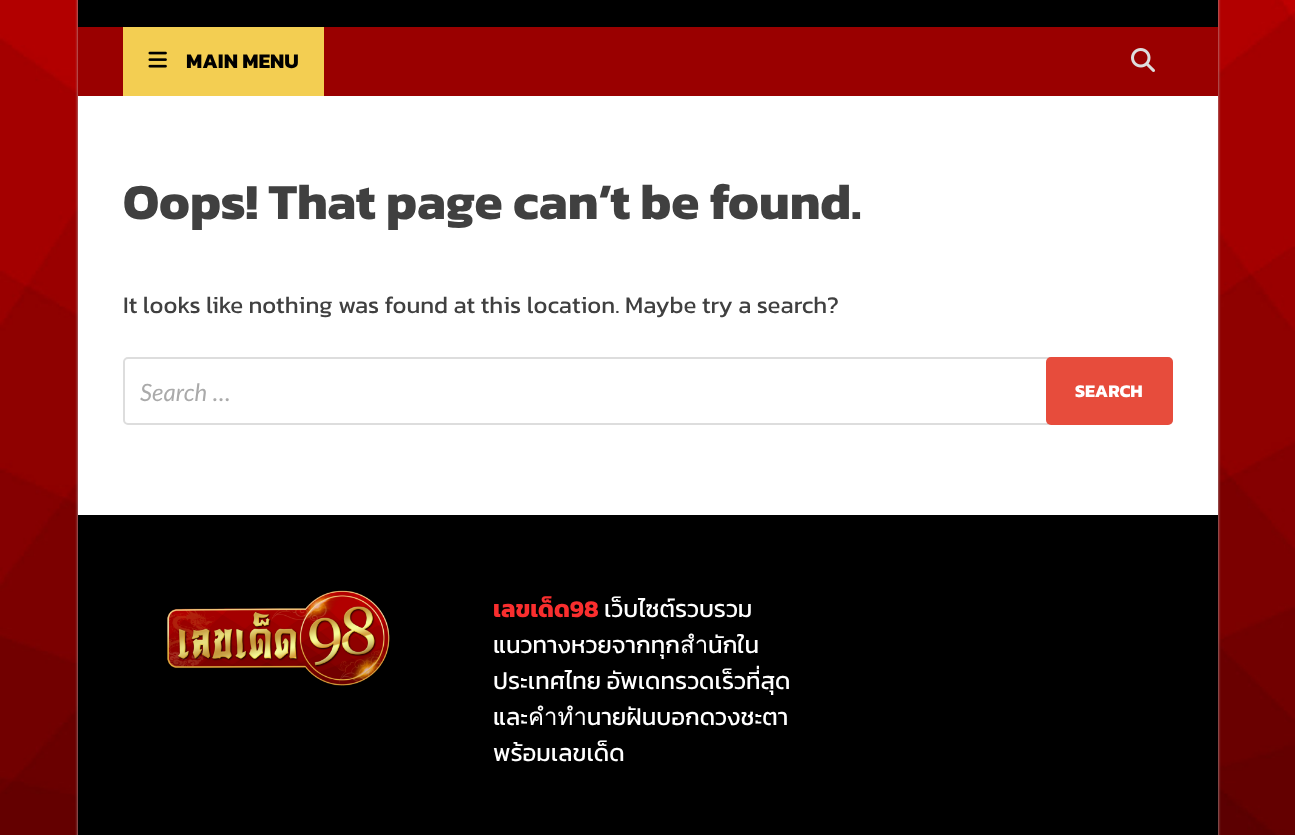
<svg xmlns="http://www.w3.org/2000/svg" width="1295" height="835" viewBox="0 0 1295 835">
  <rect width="100%" height="100%" fill="#fff"/>
  <image x="0" y="0" width="1295" height="835" href="img/1.png"/>
  <path d="M78 -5h1140v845H78z" fill="#bbb" filter="blur(1.5px)"/>
  <path d="M78 96h1140v419H78z" fill="#fff"/>
  <path d="M78 0h1140v27H78z" fill="#000"/>
  <path d="M78 27h1140v69H78z" fill="#9a0000"/>
  <path d="M123 27h201v69H123z" fill="#f3ce52"/>
  <image x="148" y="51" width="19" height="17" href="img/2.png"/>
  <image x="1131" y="48" width="24" height="24" href="img/3.png"/>
  <rect x="124" y="358" width="1048" height="66" rx="4" fill="none" stroke="#ddd" stroke-width="2"/>
  <rect x="1046" y="357" width="127" height="68" rx="5" fill="#e74c3c"/>
  <path d="M78 515h1140v320H78z" fill="#000"/>
  <image x="167" y="590" width="223" height="96" href="img/4.png"/>
  <text x="186" y="68" font-family="Kanit" font-size="21" font-weight="bold" fill="#000">MAIN MENU</text>
  <text x="123" y="219" font-family="Kanit" font-size="51" font-weight="bold" fill="#404040">Oops! That page can’t be found.</text>
  <text x="123" y="313" font-family="Kanit" font-size="24" fill="#404040">It looks like nothing was found at this location. Maybe try a search?</text>
  <text x="140" y="401" font-family="Lato" font-size="24" font-style="italic" fill="#aaa">Search …</text>
  <text x="1075" y="397" font-family="Kanit" font-size="18" font-weight="bold" fill="#fff">SEARCH</text>
  <text x="493" y="617" font-family="Kanit" font-size="24" font-weight="bold" fill="#f92e2e">เลขเด็ด98</text>
  <g font-family="Kanit" font-size="24" fill="#fff">
    <text x="604" y="617">เว็บไซต์รวบรวม</text>
    <text x="493" y="653">แนวทางหวยจากทุกสำนักใน</text>
    <text x="493" y="689">ประเทศไทย อัพเดทรวดเร็วที่สุด</text>
    <text x="493" y="725">และคำทำนายฝันบอกดวงชะตา</text>
    <text x="493" y="761">พร้อมเลขเด็ด</text>
  </g>
</svg>
